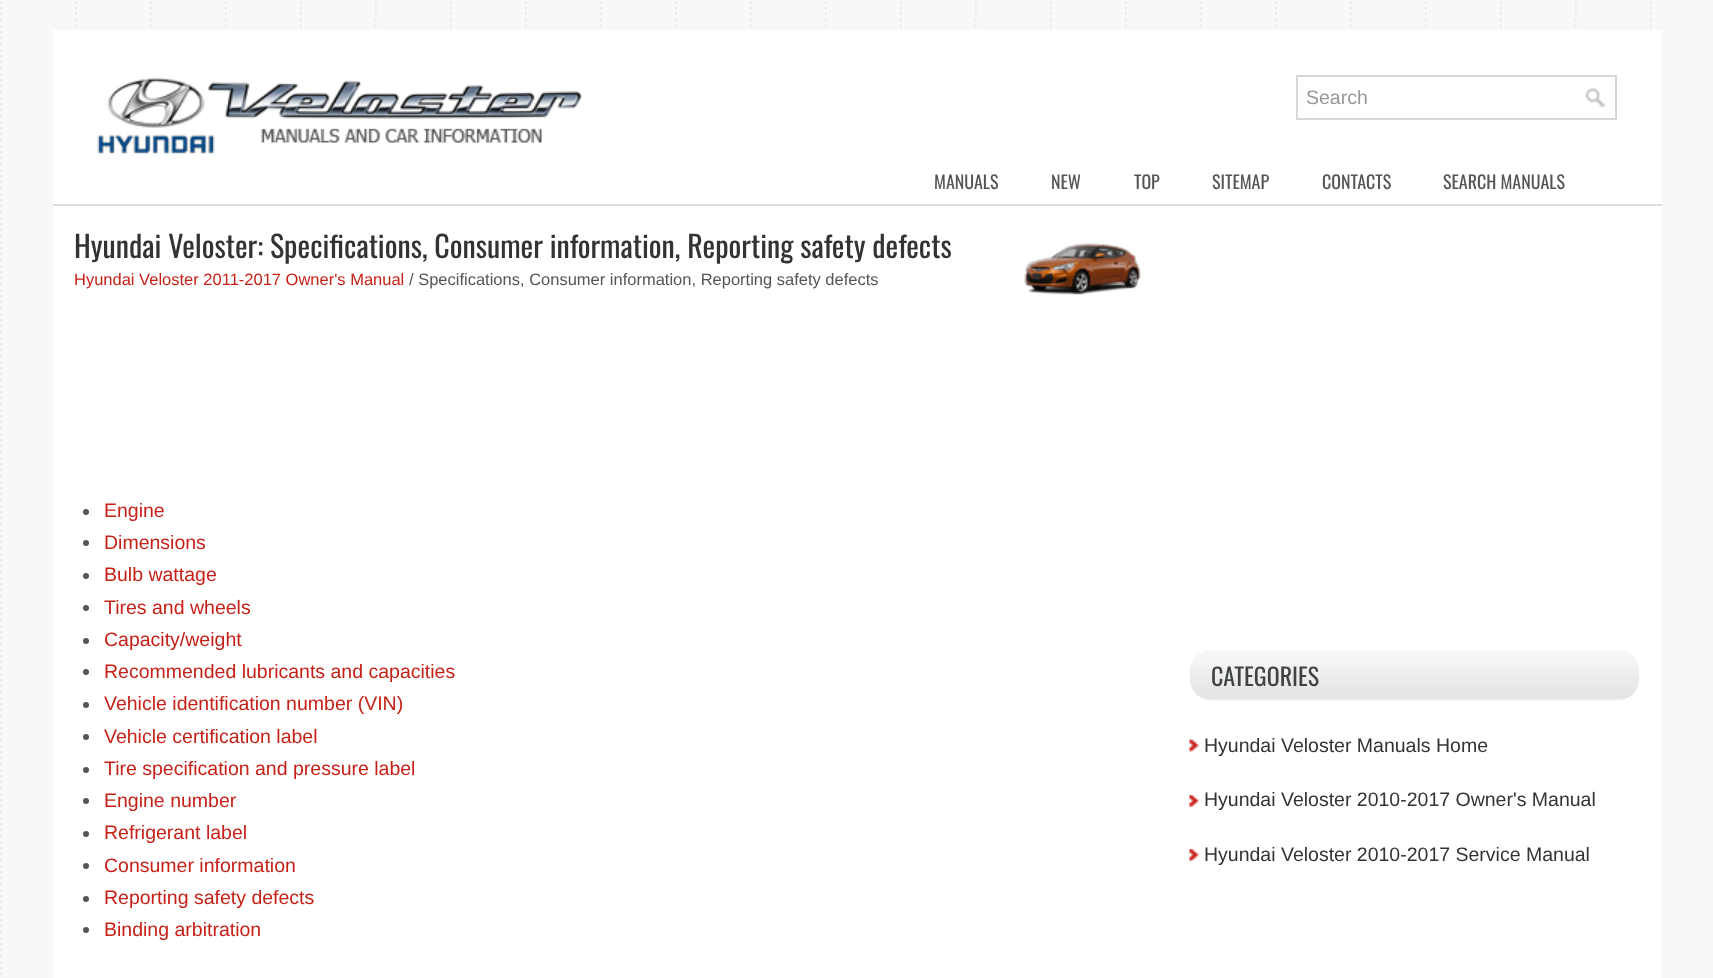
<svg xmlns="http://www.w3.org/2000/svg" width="1713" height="978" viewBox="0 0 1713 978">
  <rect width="100%" height="100%" fill="#fff"/>
  <image x="0" y="0" width="1713" height="978" href="img/1.png"/>
  <path d="M53 30h1609v948H53z" fill="#fff"/>
  <image x="97" y="77" width="486" height="77" href="img/2.png"/>
  <path d="M1297 76h319v43H1297z" fill="none" stroke="#d8d8d8" stroke-width="2"/>
  <image x="1585" y="88" width="21" height="20" href="img/3.png"/>
  <path d="M53 204h1609v2H53z" fill="#dcdcdc"/>
  <image x="1024" y="243" width="117" height="52" href="img/4.png"/>
  <circle cx="86" cy="512" r="3" fill="#555"/>
  <circle cx="86" cy="543" r="3" fill="#555"/>
  <circle cx="86" cy="576" r="3" fill="#555"/>
  <circle cx="86" cy="608" r="3" fill="#555"/>
  <circle cx="86" cy="641" r="3" fill="#555"/>
  <circle cx="86" cy="672" r="3" fill="#555"/>
  <circle cx="86" cy="705" r="3" fill="#555"/>
  <circle cx="86" cy="737" r="3" fill="#555"/>
  <circle cx="86" cy="770" r="3" fill="#555"/>
  <circle cx="86" cy="801" r="3" fill="#555"/>
  <circle cx="86" cy="834" r="3" fill="#555"/>
  <circle cx="86" cy="866" r="3" fill="#555"/>
  <circle cx="86" cy="899" r="3" fill="#555"/>
  <circle cx="86" cy="930" r="3" fill="#555"/>
  <image x="1189" y="650" width="451" height="51" href="img/5.png"/>
  <image x="1189" y="739" width="10" height="13" href="img/6.png"/>
  <image x="1189" y="795" width="10" height="12" href="img/7.png"/>
  <image x="1189" y="849" width="10" height="12" href="img/7.png"/>
  <text x="1306" y="104" font-family="Liberation Sans" font-size="19.5" fill="#979797">Search</text>
  <g font-family="Oswald" font-size="18" fill="#555">
    <text x="934" y="189">MANUALS</text>
    <text x="1051" y="189">NEW</text>
    <text x="1134" y="189">TOP</text>
    <text x="1212" y="189">SITEMAP</text>
    <text x="1322" y="189">CONTACTS</text>
    <text x="1443" y="189">SEARCH MANUALS</text>
  </g>
  <text x="74" y="258" font-family="Oswald" font-size="30" fill="#333">Hyundai Veloster: Specifications, Consumer information, Reporting safety defects</text>
  <text x="74" y="285" font-family="Liberation Sans" font-size="16.5" fill="#c72017">Hyundai Veloster 2011-2017 Owner's Manual</text>
  <text x="409" y="285" font-family="Liberation Sans" font-size="16.5" fill="#555">/ Specifications, Consumer information, Reporting safety defects</text>
  <g font-family="Liberation Sans" font-size="19.5" fill="#c72017">
    <text x="104" y="517">Engine</text>
    <text x="104" y="549">Dimensions</text>
    <text x="104" y="581">Bulb wattage</text>
    <text x="104" y="614">Tires and wheels</text>
    <text x="104" y="646">Capacity/weight</text>
    <text x="104" y="678">Recommended lubricants and capacities</text>
    <text x="104" y="710">Vehicle identification number (VIN)</text>
    <text x="104" y="743">Vehicle certification label</text>
    <text x="104" y="775">Tire specification and pressure label</text>
    <text x="104" y="807">Engine number</text>
    <text x="104" y="839">Refrigerant label</text>
    <text x="104" y="872">Consumer information</text>
    <text x="104" y="904">Reporting safety defects</text>
    <text x="104" y="936">Binding arbitration</text>
  </g>
  <text x="1211" y="686" font-family="Oswald" font-size="24" fill="#414445">CATEGORIES</text>
  <g font-family="Liberation Sans" font-size="19.5" fill="#333">
    <text x="1204" y="752">Hyundai Veloster Manuals Home</text>
    <text x="1204" y="806">Hyundai Veloster 2010-2017 Owner's Manual</text>
    <text x="1204" y="861">Hyundai Veloster 2010-2017 Service Manual</text>
  </g>
</svg>
